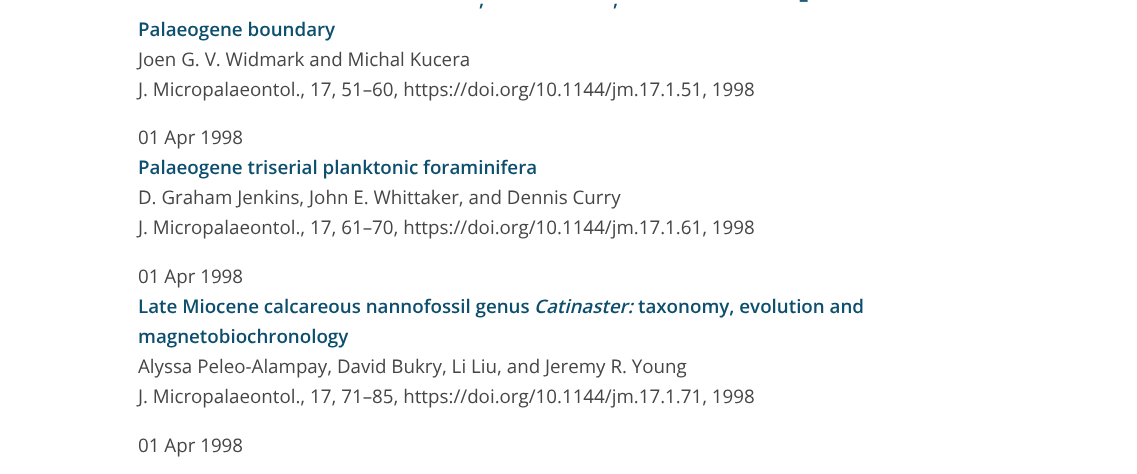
<svg xmlns="http://www.w3.org/2000/svg" width="1137" height="474" viewBox="0 0 1137 474">
  <rect width="100%" height="100%" fill="#fff"/>
  <g font-family="Open Sans" font-size="18.75" font-weight="600" fill="#0c4e6d">
    <text x="799" y="6">–</text>
    <text x="479" y="6">,</text>
    <text x="613" y="6">,</text>
    <text x="138" y="36">Palaeogene boundary</text>
  </g>
  <g font-family="Open Sans" font-size="18.75" fill="#464646">
    <text x="138" y="66">Joen G. V. Widmark and Michal Kucera</text>
    <text x="138" y="96">J. Micropalaeontol., 17, 51–60, https://doi.org/10.1144/jm.17.1.51, 1998</text>
    <text x="138" y="144">01 Apr 1998</text>
  </g>
  <text x="138" y="174" font-family="Open Sans" font-size="18.75" font-weight="600" fill="#0c4e6d">Palaeogene triserial planktonic foraminifera</text>
  <g font-family="Open Sans" font-size="18.75" fill="#464646">
    <text x="138" y="204">D. Graham Jenkins, John E. Whittaker, and Dennis Curry</text>
    <text x="138" y="234">J. Micropalaeontol., 17, 61–70, https://doi.org/10.1144/jm.17.1.61, 1998</text>
    <text x="138" y="283">01 Apr 1998</text>
  </g>
  <text x="138" y="313" font-family="Open Sans" font-size="18.75" font-weight="600" fill="#0c4e6d">Late Miocene calcareous nannofossil genus</text>
  <text x="534" y="313" font-family="Open Sans" font-size="18.75" font-weight="600" font-style="italic" fill="#0c4e6d">Catinaster:</text>
  <g font-family="Open Sans" font-size="18.75" font-weight="600" fill="#0c4e6d">
    <text x="638" y="313">taxonomy, evolution and</text>
    <text x="138" y="343">magnetobiochronology</text>
  </g>
  <g font-family="Open Sans" font-size="18.75" fill="#464646">
    <text x="138" y="373">Alyssa Peleo-Alampay, David Bukry, Li Liu, and Jeremy R. Young</text>
    <text x="138" y="403">J. Micropalaeontol., 17, 71–85, https://doi.org/10.1144/jm.17.1.71, 1998</text>
    <text x="138" y="452">01 Apr 1998</text>
  </g>
</svg>
